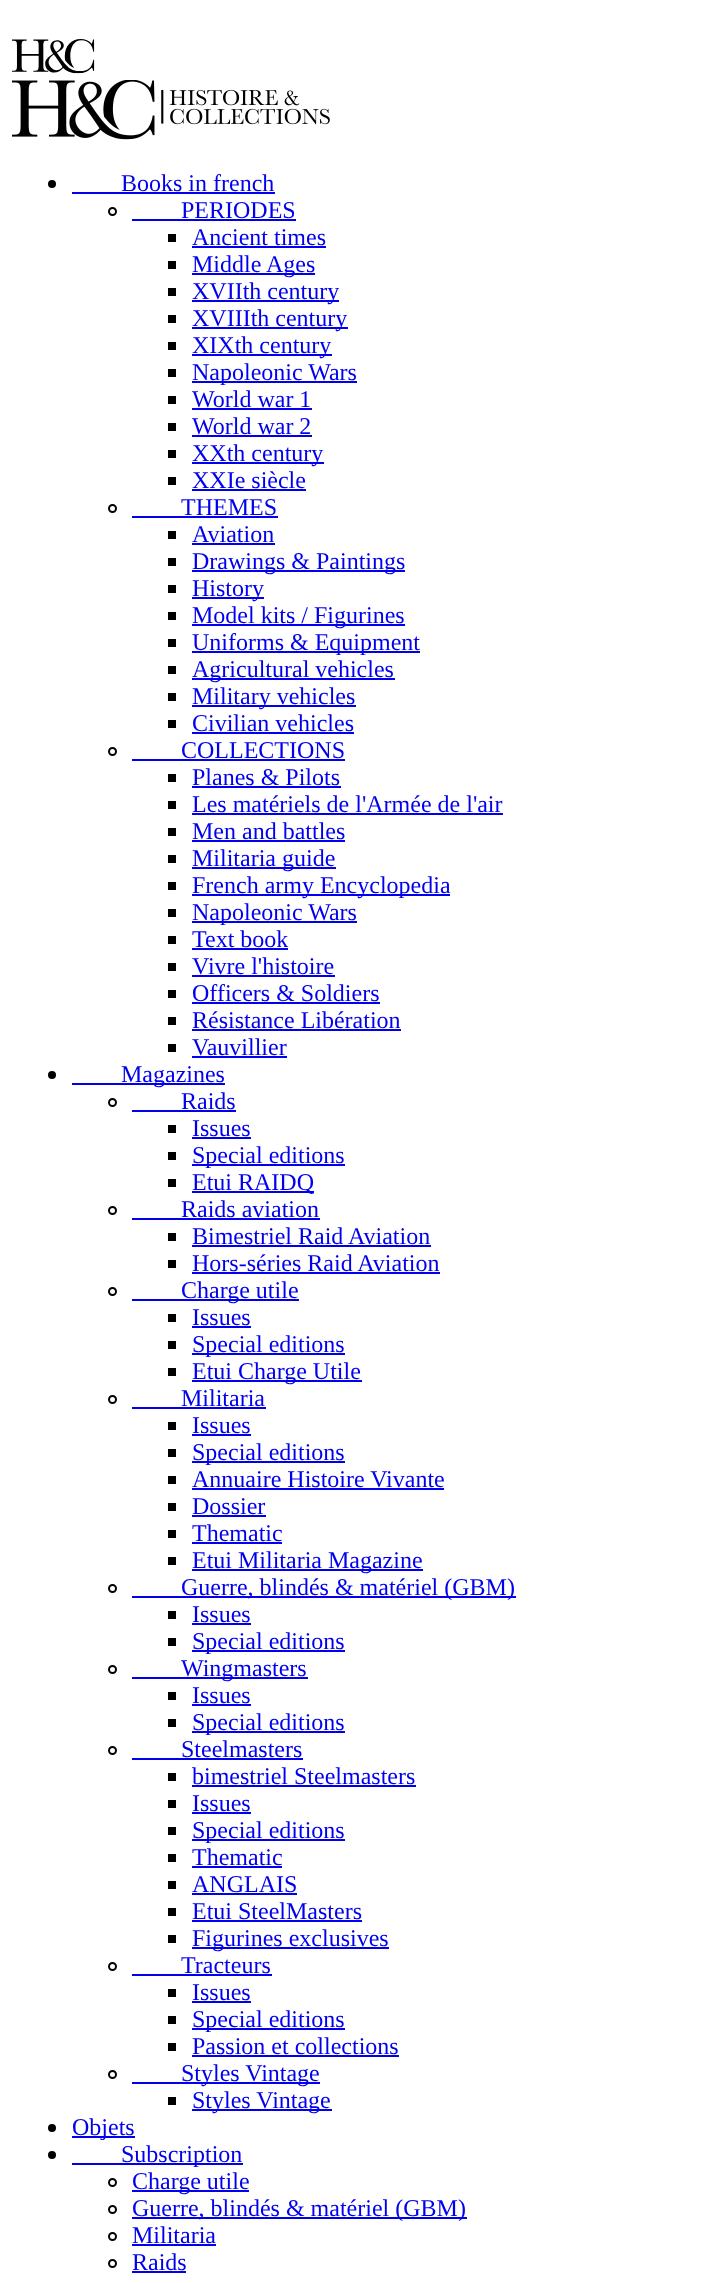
<svg xmlns="http://www.w3.org/2000/svg" width="712" height="2283" viewBox="0 0 712 2283">
  <rect width="100%" height="100%" fill="#fff"/>
  <image x="12" y="39" width="83" height="35" href="img/1.png"/>
  <image x="12" y="80" width="318" height="60" href="img/2.png"/>
  <circle cx="52" cy="184" r="4" fill="#000"/>
  <path d="M72 192h203v2H72z" fill="#00e"/>
  <circle cx="112.5" cy="211.5" r="3.5" fill="none" stroke="#000" stroke-width="2"/>
  <path d="M132 219h164v2H132z" fill="#00e"/>
  <path d="M168 234h8v8H168z" fill="#000"/>
  <path d="M192 246h134v2H192z" fill="#00e"/>
  <path d="M168 261h8v8H168z" fill="#000"/>
  <path d="M192 273h123v2H192z" fill="#00e"/>
  <path d="M168 288h8v8H168z" fill="#000"/>
  <path d="M192 300h147v2H192z" fill="#00e"/>
  <path d="M168 315h8v8H168z" fill="#000"/>
  <path d="M192 327h156v2H192z" fill="#00e"/>
  <path d="M168 342h8v8H168z" fill="#000"/>
  <path d="M192 354h140v2H192z" fill="#00e"/>
  <path d="M168 369h8v8H168z" fill="#000"/>
  <path d="M192 381h165v2H192z" fill="#00e"/>
  <path d="M168 396h8v8H168z" fill="#000"/>
  <path d="M192 408h120v2H192z" fill="#00e"/>
  <path d="M168 423h8v8H168z" fill="#000"/>
  <path d="M192 435h120v2H192z" fill="#00e"/>
  <path d="M168 450h8v8H168z" fill="#000"/>
  <path d="M192 462h132v2H192z" fill="#00e"/>
  <path d="M168 477h8v8H168z" fill="#000"/>
  <path d="M192 489h114v2H192z" fill="#00e"/>
  <circle cx="112.5" cy="508.5" r="3.5" fill="none" stroke="#000" stroke-width="2"/>
  <path d="M132 516h146v2H132z" fill="#00e"/>
  <path d="M168 531h8v8H168z" fill="#000"/>
  <path d="M192 543h83v2H192z" fill="#00e"/>
  <path d="M168 558h8v8H168z" fill="#000"/>
  <path d="M192 570h213v2H192z" fill="#00e"/>
  <path d="M168 585h8v8H168z" fill="#000"/>
  <path d="M192 597h72v2H192z" fill="#00e"/>
  <path d="M168 612h8v8H168z" fill="#000"/>
  <path d="M192 624h213v2H192z" fill="#00e"/>
  <path d="M168 639h8v8H168z" fill="#000"/>
  <path d="M192 651h228v2H192z" fill="#00e"/>
  <path d="M168 666h8v8H168z" fill="#000"/>
  <path d="M192 678h203v2H192z" fill="#00e"/>
  <path d="M168 693h8v8H168z" fill="#000"/>
  <path d="M192 705h164v2H192z" fill="#00e"/>
  <path d="M168 720h8v8H168z" fill="#000"/>
  <path d="M192 732h162v2H192z" fill="#00e"/>
  <circle cx="112.5" cy="751.5" r="3.5" fill="none" stroke="#000" stroke-width="2"/>
  <path d="M132 759h213v2H132z" fill="#00e"/>
  <path d="M168 774h8v8H168z" fill="#000"/>
  <path d="M192 786h149v2H192z" fill="#00e"/>
  <path d="M168 801h8v8H168z" fill="#000"/>
  <path d="M192 813h311v2H192z" fill="#00e"/>
  <path d="M168 828h8v8H168z" fill="#000"/>
  <path d="M192 840h153v2H192z" fill="#00e"/>
  <path d="M168 855h8v8H168z" fill="#000"/>
  <path d="M192 867h144v2H192z" fill="#00e"/>
  <path d="M168 882h8v8H168z" fill="#000"/>
  <path d="M192 894h258v2H192z" fill="#00e"/>
  <path d="M168 909h8v8H168z" fill="#000"/>
  <path d="M192 921h165v2H192z" fill="#00e"/>
  <path d="M168 936h8v8H168z" fill="#000"/>
  <path d="M192 948h96v2H192z" fill="#00e"/>
  <path d="M168 963h8v8H168z" fill="#000"/>
  <path d="M192 975h143v2H192z" fill="#00e"/>
  <path d="M168 990h8v8H168z" fill="#000"/>
  <path d="M192 1002h188v2H192z" fill="#00e"/>
  <path d="M168 1017h8v8H168z" fill="#000"/>
  <path d="M192 1029h209v2H192z" fill="#00e"/>
  <path d="M168 1044h8v8H168z" fill="#000"/>
  <path d="M192 1056h95v2H192z" fill="#00e"/>
  <circle cx="52" cy="1075" r="4" fill="#000"/>
  <path d="M72 1083h153v2H72z" fill="#00e"/>
  <circle cx="112.5" cy="1102.5" r="3.5" fill="none" stroke="#000" stroke-width="2"/>
  <path d="M132 1110h104v2H132z" fill="#00e"/>
  <path d="M168 1125h8v8H168z" fill="#000"/>
  <path d="M192 1137h59v2H192z" fill="#00e"/>
  <path d="M168 1152h8v8H168z" fill="#000"/>
  <path d="M192 1164h153v2H192z" fill="#00e"/>
  <path d="M168 1179h8v8H168z" fill="#000"/>
  <path d="M192 1191h122v2H192z" fill="#00e"/>
  <circle cx="112.5" cy="1210.5" r="3.5" fill="none" stroke="#000" stroke-width="2"/>
  <path d="M132 1218h188v2H132z" fill="#00e"/>
  <path d="M168 1233h8v8H168z" fill="#000"/>
  <path d="M192 1245h239v2H192z" fill="#00e"/>
  <path d="M168 1260h8v8H168z" fill="#000"/>
  <path d="M192 1272h248v2H192z" fill="#00e"/>
  <circle cx="112.5" cy="1291.5" r="3.5" fill="none" stroke="#000" stroke-width="2"/>
  <path d="M132 1299h167v2H132z" fill="#00e"/>
  <path d="M168 1314h8v8H168z" fill="#000"/>
  <path d="M192 1326h59v2H192z" fill="#00e"/>
  <path d="M168 1341h8v8H168z" fill="#000"/>
  <path d="M192 1353h153v2H192z" fill="#00e"/>
  <path d="M168 1368h8v8H168z" fill="#000"/>
  <path d="M192 1380h170v2H192z" fill="#00e"/>
  <circle cx="112.5" cy="1399.5" r="3.5" fill="none" stroke="#000" stroke-width="2"/>
  <path d="M132 1407h134v2H132z" fill="#00e"/>
  <path d="M168 1422h8v8H168z" fill="#000"/>
  <path d="M192 1434h59v2H192z" fill="#00e"/>
  <path d="M168 1449h8v8H168z" fill="#000"/>
  <path d="M192 1461h153v2H192z" fill="#00e"/>
  <path d="M168 1476h8v8H168z" fill="#000"/>
  <path d="M192 1488h252v2H192z" fill="#00e"/>
  <path d="M168 1503h8v8H168z" fill="#000"/>
  <path d="M192 1515h74v2H192z" fill="#00e"/>
  <path d="M168 1530h8v8H168z" fill="#000"/>
  <path d="M192 1542h90v2H192z" fill="#00e"/>
  <path d="M168 1557h8v8H168z" fill="#000"/>
  <path d="M192 1569h231v2H192z" fill="#00e"/>
  <circle cx="112.5" cy="1588.5" r="3.5" fill="none" stroke="#000" stroke-width="2"/>
  <path d="M132 1596h384v2H132z" fill="#00e"/>
  <path d="M168 1611h8v8H168z" fill="#000"/>
  <path d="M192 1623h59v2H192z" fill="#00e"/>
  <path d="M168 1638h8v8H168z" fill="#000"/>
  <path d="M192 1650h153v2H192z" fill="#00e"/>
  <circle cx="112.5" cy="1669.5" r="3.5" fill="none" stroke="#000" stroke-width="2"/>
  <path d="M132 1677h176v2H132z" fill="#00e"/>
  <path d="M168 1692h8v8H168z" fill="#000"/>
  <path d="M192 1704h59v2H192z" fill="#00e"/>
  <path d="M168 1719h8v8H168z" fill="#000"/>
  <path d="M192 1731h153v2H192z" fill="#00e"/>
  <circle cx="112.5" cy="1750.5" r="3.5" fill="none" stroke="#000" stroke-width="2"/>
  <path d="M132 1758h171v2H132z" fill="#00e"/>
  <path d="M168 1773h8v8H168z" fill="#000"/>
  <path d="M192 1785h224v2H192z" fill="#00e"/>
  <path d="M168 1800h8v8H168z" fill="#000"/>
  <path d="M192 1812h59v2H192z" fill="#00e"/>
  <path d="M168 1827h8v8H168z" fill="#000"/>
  <path d="M192 1839h153v2H192z" fill="#00e"/>
  <path d="M168 1854h8v8H168z" fill="#000"/>
  <path d="M192 1866h90v2H192z" fill="#00e"/>
  <path d="M168 1881h8v8H168z" fill="#000"/>
  <path d="M192 1893h105v2H192z" fill="#00e"/>
  <path d="M168 1908h8v8H168z" fill="#000"/>
  <path d="M192 1920h170v2H192z" fill="#00e"/>
  <path d="M168 1935h8v8H168z" fill="#000"/>
  <path d="M192 1947h197v2H192z" fill="#00e"/>
  <circle cx="112.5" cy="1966.5" r="3.5" fill="none" stroke="#000" stroke-width="2"/>
  <path d="M132 1974h140v2H132z" fill="#00e"/>
  <path d="M168 1989h8v8H168z" fill="#000"/>
  <path d="M192 2001h59v2H192z" fill="#00e"/>
  <path d="M168 2016h8v8H168z" fill="#000"/>
  <path d="M192 2028h153v2H192z" fill="#00e"/>
  <path d="M168 2043h8v8H168z" fill="#000"/>
  <path d="M192 2055h207v2H192z" fill="#00e"/>
  <circle cx="112.5" cy="2074.5" r="3.5" fill="none" stroke="#000" stroke-width="2"/>
  <path d="M132 2082h188v2H132z" fill="#00e"/>
  <path d="M168 2097h8v8H168z" fill="#000"/>
  <path d="M192 2109h140v2H192z" fill="#00e"/>
  <circle cx="52" cy="2128" r="4" fill="#000"/>
  <path d="M72 2136h63v2H72z" fill="#00e"/>
  <circle cx="52" cy="2155" r="4" fill="#000"/>
  <path d="M72 2163h171v2H72z" fill="#00e"/>
  <circle cx="112.5" cy="2182.5" r="3.5" fill="none" stroke="#000" stroke-width="2"/>
  <path d="M132 2190h117v2H132z" fill="#00e"/>
  <circle cx="112.5" cy="2209.5" r="3.5" fill="none" stroke="#000" stroke-width="2"/>
  <path d="M132 2217h335v2H132z" fill="#00e"/>
  <circle cx="112.5" cy="2236.5" r="3.5" fill="none" stroke="#000" stroke-width="2"/>
  <path d="M132 2244h84v2H132z" fill="#00e"/>
  <circle cx="112.5" cy="2263.5" r="3.5" fill="none" stroke="#000" stroke-width="2"/>
  <path d="M132 2271h54v2H132z" fill="#00e"/>
  <g font-family="Liberation Serif" font-size="24" fill="#00e">
    <text x="121" y="191">Books in french</text>
    <text x="181" y="218">PERIODES</text>
    <text x="192" y="245">Ancient times</text>
    <text x="192" y="272">Middle Ages</text>
    <text x="192" y="299">XVIIth century</text>
    <text x="192" y="326">XVIIIth century</text>
    <text x="192" y="353">XIXth century</text>
    <text x="192" y="380">Napoleonic Wars</text>
    <text x="192" y="407">World war 1</text>
    <text x="192" y="434">World war 2</text>
    <text x="192" y="461">XXth century</text>
    <text x="192" y="488">XXIe siècle</text>
    <text x="181" y="515">THEMES</text>
    <text x="192" y="542">Aviation</text>
    <text x="192" y="569">Drawings &amp; Paintings</text>
    <text x="192" y="596">History</text>
    <text x="192" y="623">Model kits / Figurines</text>
    <text x="192" y="650">Uniforms &amp; Equipment</text>
    <text x="192" y="677">Agricultural vehicles</text>
    <text x="192" y="704">Military vehicles</text>
    <text x="192" y="731">Civilian vehicles</text>
    <text x="181" y="758">COLLECTIONS</text>
    <text x="192" y="785">Planes &amp; Pilots</text>
    <text x="192" y="812">Les matériels de l'Armée de l'air</text>
    <text x="192" y="839">Men and battles</text>
    <text x="192" y="866">Militaria guide</text>
    <text x="192" y="893">French army Encyclopedia</text>
    <text x="192" y="920">Napoleonic Wars</text>
    <text x="192" y="947">Text book</text>
    <text x="192" y="974">Vivre l'histoire</text>
    <text x="192" y="1001">Officers &amp; Soldiers</text>
    <text x="192" y="1028">Résistance Libération</text>
    <text x="192" y="1055">Vauvillier</text>
    <text x="121" y="1082">Magazines</text>
    <text x="181" y="1109">Raids</text>
    <text x="192" y="1136">Issues</text>
    <text x="192" y="1163">Special editions</text>
    <text x="192" y="1190">Etui RAIDQ</text>
    <text x="181" y="1217">Raids aviation</text>
    <text x="192" y="1244">Bimestriel Raid Aviation</text>
    <text x="192" y="1271">Hors-séries Raid Aviation</text>
    <text x="181" y="1298">Charge utile</text>
    <text x="192" y="1325">Issues</text>
    <text x="192" y="1352">Special editions</text>
    <text x="192" y="1379">Etui Charge Utile</text>
    <text x="181" y="1406">Militaria</text>
    <text x="192" y="1433">Issues</text>
    <text x="192" y="1460">Special editions</text>
    <text x="192" y="1487">Annuaire Histoire Vivante</text>
    <text x="192" y="1514">Dossier</text>
    <text x="192" y="1541">Thematic</text>
    <text x="192" y="1568">Etui Militaria Magazine</text>
    <text x="181" y="1595">Guerre, blindés &amp; matériel (GBM)</text>
    <text x="192" y="1622">Issues</text>
    <text x="192" y="1649">Special editions</text>
    <text x="181" y="1676">Wingmasters</text>
    <text x="192" y="1703">Issues</text>
    <text x="192" y="1730">Special editions</text>
    <text x="181" y="1757">Steelmasters</text>
    <text x="192" y="1784">bimestriel Steelmasters</text>
    <text x="192" y="1811">Issues</text>
    <text x="192" y="1838">Special editions</text>
    <text x="192" y="1865">Thematic</text>
    <text x="192" y="1892">ANGLAIS</text>
    <text x="192" y="1919">Etui SteelMasters</text>
    <text x="192" y="1946">Figurines exclusives</text>
    <text x="181" y="1973">Tracteurs</text>
    <text x="192" y="2000">Issues</text>
    <text x="192" y="2027">Special editions</text>
    <text x="192" y="2054">Passion et collections</text>
    <text x="181" y="2081">Styles Vintage</text>
    <text x="192" y="2108">Styles Vintage</text>
    <text x="72" y="2135">Objets</text>
    <text x="121" y="2162">Subscription</text>
    <text x="132" y="2189">Charge utile</text>
    <text x="132" y="2216">Guerre, blindés &amp; matériel (GBM)</text>
    <text x="132" y="2243">Militaria</text>
    <text x="132" y="2270">Raids</text>
  </g>
</svg>
